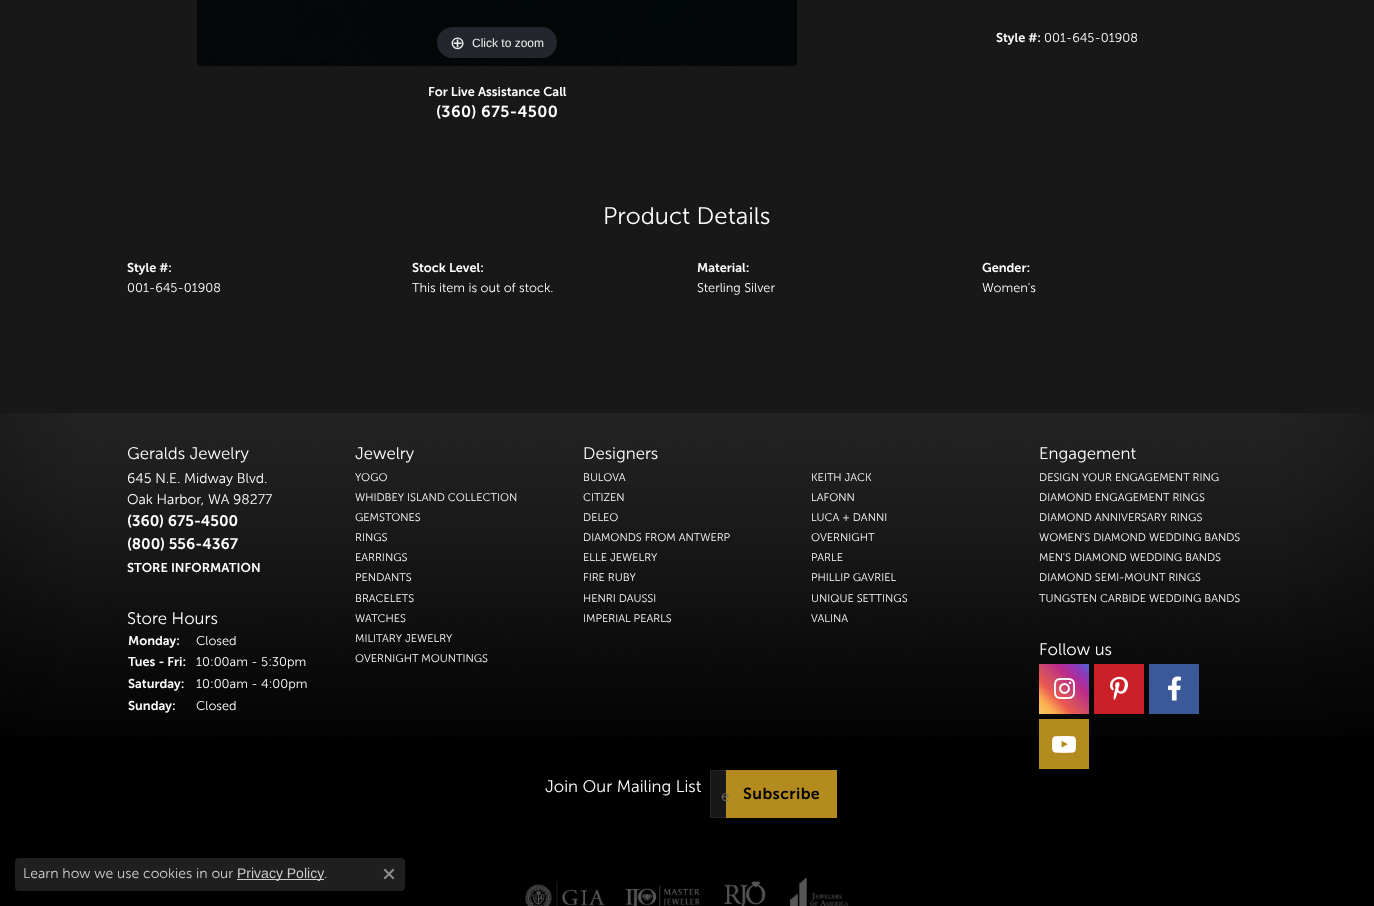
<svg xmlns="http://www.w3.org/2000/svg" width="1374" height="906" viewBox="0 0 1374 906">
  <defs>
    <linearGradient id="g1" gradientUnits="userSpaceOnUse" x1="1039" y1="714" x2="1089" y2="664"><stop offset="0" stop-color="#fccc63"/><stop offset="0.17" stop-color="#fbad50"/><stop offset="0.34" stop-color="#e95950"/><stop offset="0.51" stop-color="#cd486b"/><stop offset="0.68" stop-color="#bc2a8d"/><stop offset="0.85" stop-color="#8a3ab9"/><stop offset="1" stop-color="#4c68d7"/></linearGradient>
  </defs>
  <rect width="100%" height="100%" fill="#181818"/>
  <image x="197" y="0" width="600" height="66" href="img/1.png"/>
  <rect x="437" y="27" width="120" height="31" rx="15.5" fill="#23262d"/>
  <path d="M0 737h1374v169H0z" fill="#000"/>
  <image x="0" y="413" width="1374" height="324" href="img/2.png"/>
  <path d="M1039 664h50v50H1039z" fill="url(#g1)"/>
  <image x="1054" y="678" width="21" height="21" href="img/3.png"/>
  <path d="M1094 664h50v50H1094z" fill="#cb2027"/>
  <image x="1110" y="676" width="18" height="25" href="img/4.png"/>
  <path d="M1149 664h50v50H1149z" fill="#3b5998"/>
  <image x="1168" y="676" width="13" height="25" href="img/5.png"/>
  <path d="M1039 719h50v50H1039z" fill="#b48b1f"/>
  <image x="1052" y="736" width="24" height="17" href="img/6.png"/>
  <path d="M710.5 770.5h16v47H710.5z" fill="#181818" stroke="#252525"/>
  <path d="M726 770h111v48H726z" fill="#b48b1f"/>
  <image x="525" y="881" width="80" height="25" href="img/7.png"/>
  <image x="625" y="885" width="75" height="21" href="img/8.png"/>
  <image x="724" y="881" width="42" height="25" href="img/9.png"/>
  <image x="790" y="877" width="59" height="29" href="img/10.png"/>
  <rect x="15" y="858" width="390" height="33" rx="4" fill="#1f1f1f"/>
  <path d="M237 879h87v1H237z" fill="#ccc"/>
  <image x="383" y="868" width="12" height="12" href="img/11.png"/>
  <text x="450" y="49" font-family="DejaVu Sans" font-size="18" fill="#eee">⊕</text>
  <text x="472" y="47" font-family="Liberation Sans" font-size="12" fill="#eee">Click to zoom</text>
  <text x="428" y="96" font-family="'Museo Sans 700'" font-size="12.75" font-weight="600" fill="#fff">For Live Assistance Call</text>
  <text x="436" y="117" font-family="'Museo Sans 700'" font-size="16" font-weight="600" letter-spacing="0.4" fill="#fff">(360) 675-4500</text>
  <text x="996" y="42" font-family="'Museo Sans 700'" font-size="12.75" font-weight="600" fill="#fff">Style #:</text>
  <text x="1044" y="42" font-family="'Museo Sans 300'" font-size="12.75" font-weight="300" fill="#fff">001-645-01908</text>
  <text x="603" y="224" font-family="'Museo Sans 300'" font-size="24" font-weight="300" fill="#fff">Product Details</text>
  <text x="127" y="272" font-family="'Museo Sans 700'" font-size="12.75" font-weight="600" fill="#fff">Style #:</text>
  <text x="127" y="292" font-family="'Museo Sans 300'" font-size="12.75" font-weight="300" fill="#fff">001-645-01908</text>
  <text x="412" y="272" font-family="'Museo Sans 700'" font-size="12.75" font-weight="600" fill="#fff">Stock Level:</text>
  <text x="412" y="292" font-family="'Museo Sans 300'" font-size="12.75" font-weight="300" fill="#fff">This item is out of stock.</text>
  <text x="697" y="272" font-family="'Museo Sans 700'" font-size="12.75" font-weight="600" fill="#fff">Material:</text>
  <text x="697" y="292" font-family="'Museo Sans 300'" font-size="12.75" font-weight="300" fill="#fff">Sterling Silver</text>
  <text x="982" y="272" font-family="'Museo Sans 700'" font-size="12.75" font-weight="600" fill="#fff">Gender:</text>
  <text x="982" y="292" font-family="'Museo Sans 300'" font-size="12.75" font-weight="300" fill="#fff">Women's</text>
  <text x="127" y="459" font-family="'Museo Sans 300'" font-size="16.75" font-weight="300" fill="#fff">Geralds Jewelry</text>
  <g font-family="'Museo Sans 300'" font-size="14" font-weight="300" fill="#fff">
    <text x="127" y="483">645 N.E. Midway Blvd.</text>
    <text x="127" y="504">Oak Harbor, WA 98277</text>
  </g>
  <g font-family="'Museo Sans 700'" font-size="15.25" font-weight="600" fill="#fff">
    <text x="127" y="526">(360) 675-4500</text>
    <text x="127" y="549">(800) 556-4367</text>
  </g>
  <text x="127" y="572" font-family="'Museo Sans 700'" font-size="12.75" font-weight="600" fill="#fff">STORE INFORMATION</text>
  <text x="127" y="624" font-family="'Museo Sans 300'" font-size="16.75" font-weight="300" fill="#fff">Store Hours</text>
  <text x="128" y="645" font-family="'Museo Sans 700'" font-size="12.75" font-weight="600" fill="#fff">Monday:</text>
  <text x="196" y="645" font-family="'Museo Sans 300'" font-size="12.75" font-weight="300" fill="#fff">Closed</text>
  <text x="128" y="666" font-family="'Museo Sans 700'" font-size="12.75" font-weight="600" fill="#fff">Tues - Fri:</text>
  <text x="196" y="666" font-family="'Museo Sans 300'" font-size="12.75" font-weight="300" fill="#fff">10:00am - 5:30pm</text>
  <text x="128" y="688" font-family="'Museo Sans 700'" font-size="12.75" font-weight="600" fill="#fff">Saturday:</text>
  <text x="196" y="688" font-family="'Museo Sans 300'" font-size="12.75" font-weight="300" fill="#fff">10:00am - 4:00pm</text>
  <text x="128" y="710" font-family="'Museo Sans 700'" font-size="12.75" font-weight="600" fill="#fff">Sunday:</text>
  <text x="196" y="710" font-family="'Museo Sans 300'" font-size="12.75" font-weight="300" fill="#fff">Closed</text>
  <text x="355" y="459" font-family="'Museo Sans 300'" font-size="16.75" font-weight="300" fill="#fff">Jewelry</text>
  <g font-family="'Museo Sans 300'" font-size="11" font-weight="300" fill="#fff">
    <text x="355" y="481">YOGO</text>
    <text x="355" y="501">WHIDBEY ISLAND COLLECTION</text>
    <text x="355" y="521">GEMSTONES</text>
    <text x="355" y="541">RINGS</text>
    <text x="355" y="561">EARRINGS</text>
    <text x="355" y="581">PENDANTS</text>
    <text x="355" y="602">BRACELETS</text>
    <text x="355" y="622">WATCHES</text>
    <text x="355" y="642">MILITARY JEWELRY</text>
    <text x="355" y="662">OVERNIGHT MOUNTINGS</text>
  </g>
  <text x="583" y="459" font-family="'Museo Sans 300'" font-size="16.75" font-weight="300" fill="#fff">Designers</text>
  <g font-family="'Museo Sans 300'" font-size="11" font-weight="300" fill="#fff">
    <text x="583" y="481">BULOVA</text>
    <text x="583" y="501">CITIZEN</text>
    <text x="583" y="521">DELEO</text>
    <text x="583" y="541">DIAMONDS FROM ANTWERP</text>
    <text x="583" y="561">ELLE JEWELRY</text>
    <text x="583" y="581">FIRE  RUBY</text>
    <text x="583" y="602">HENRI DAUSSI</text>
    <text x="583" y="622">IMPERIAL PEARLS</text>
    <text x="811" y="481">KEITH JACK</text>
    <text x="811" y="501">LAFONN</text>
    <text x="811" y="521">LUCA + DANNI</text>
    <text x="811" y="541">OVERNIGHT</text>
    <text x="811" y="561">PARLE</text>
    <text x="811" y="581">PHILLIP GAVRIEL</text>
    <text x="811" y="602">UNIQUE SETTINGS</text>
    <text x="811" y="622">VALINA</text>
  </g>
  <text x="1039" y="459" font-family="'Museo Sans 300'" font-size="16.75" font-weight="300" fill="#fff">Engagement</text>
  <g font-family="'Museo Sans 300'" font-size="11" font-weight="300" fill="#fff">
    <text x="1039" y="481">DESIGN YOUR ENGAGEMENT RING</text>
    <text x="1039" y="501">DIAMOND ENGAGEMENT RINGS</text>
    <text x="1039" y="521">DIAMOND ANNIVERSARY RINGS</text>
    <text x="1039" y="541">WOMEN'S DIAMOND WEDDING BANDS</text>
    <text x="1039" y="561">MEN'S DIAMOND WEDDING BANDS</text>
    <text x="1039" y="581">DIAMOND SEMI-MOUNT RINGS</text>
    <text x="1039" y="602">TUNGSTEN CARBIDE WEDDING BANDS</text>
  </g>
  <g font-family="'Museo Sans 300'" font-size="16.75" font-weight="300" fill="#fff">
    <text x="1039" y="655">Follow us</text>
    <text x="545" y="792">Join Our Mailing List</text>
  </g>
  <text x="721" y="801" font-family="'Museo Sans 300'" font-size="15.25" font-weight="300" fill="#707070">e</text>
  <text x="743" y="799" font-family="'Museo Sans 700'" font-size="16" font-weight="600" letter-spacing="0.4" fill="#010101">Subscribe</text>
  <text x="23" y="878" font-family="'Museo Sans 300'" font-size="14" font-weight="300" fill="#ccc">Learn how we use cookies in our</text>
  <text x="237" y="878" font-family="Liberation Sans" font-size="14" fill="#ccc">Privacy Policy</text>
  <text x="324" y="878" font-family="'Museo Sans 300'" font-size="14" font-weight="300" fill="#ccc">.</text>
</svg>
